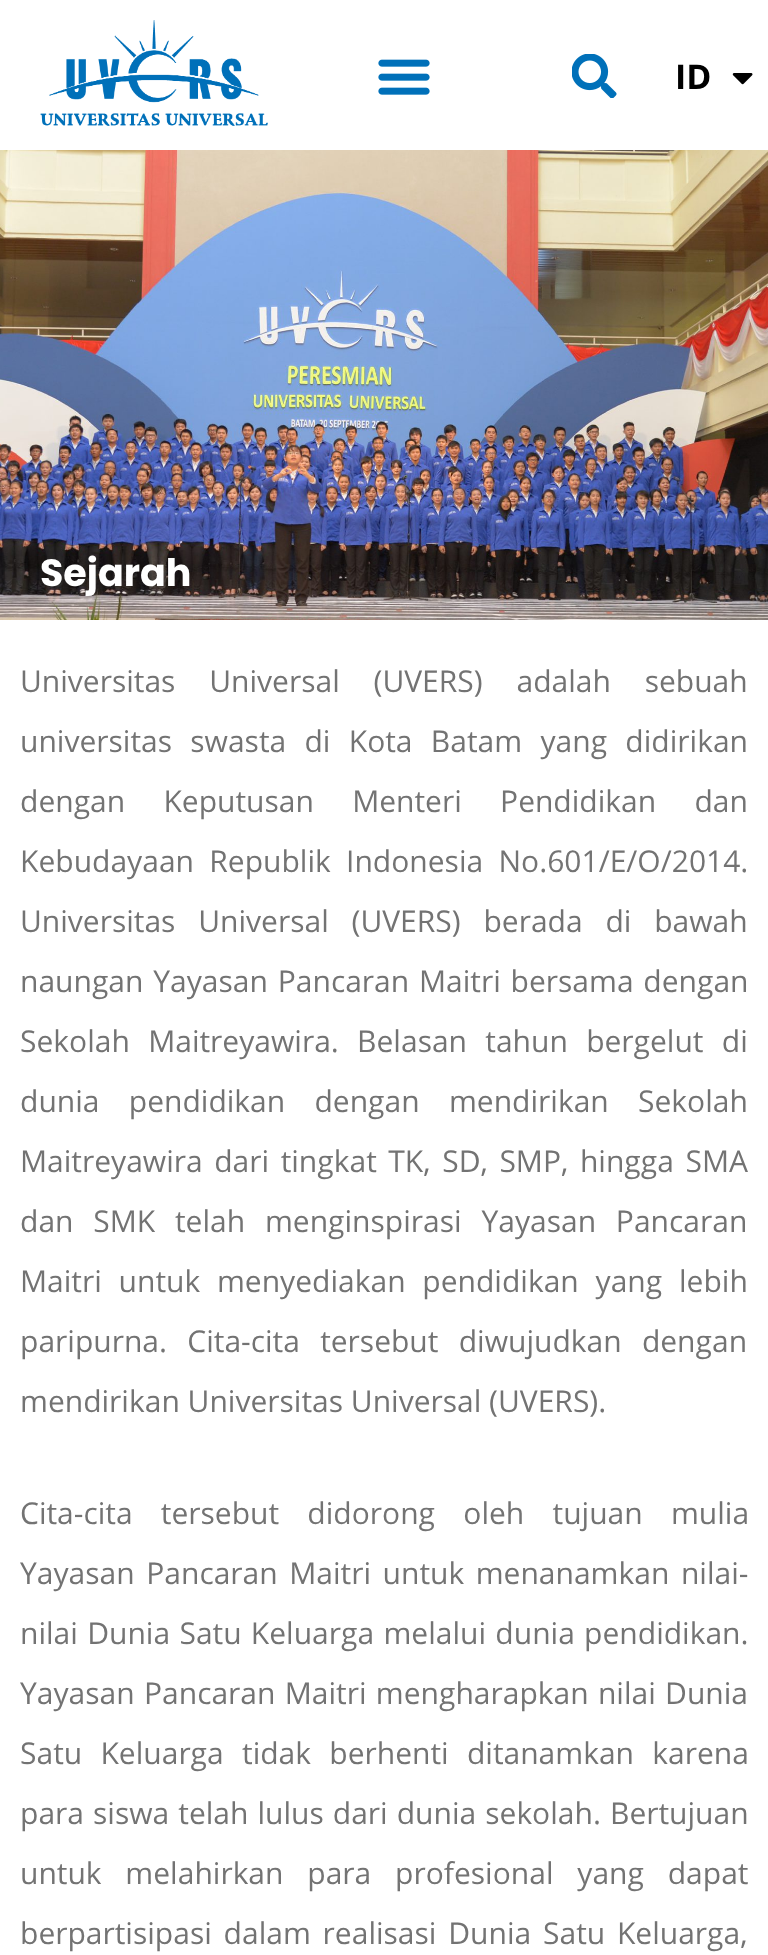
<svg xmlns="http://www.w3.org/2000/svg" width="768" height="1955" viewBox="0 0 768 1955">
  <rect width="100%" height="100%" fill="#fff"/>
  <image x="40" y="20" width="228" height="106" href="img/1.png"/>
  <image x="378" y="59" width="52" height="36" href="img/2.png"/>
  <image x="572" y="54" width="45" height="44" href="img/3.png"/>
  <image x="732" y="73" width="21" height="12" href="img/4.png"/>
  <image x="0" y="150" width="768" height="470" href="img/5.png"/>
  <text x="675" y="89" font-family="Open Sans" font-size="34" font-weight="bold" fill="#000">ID</text>
  <text x="40" y="586" font-family="Poppins" font-size="38" font-weight="bold" fill="#fff">Sejarah</text>
  <g font-family="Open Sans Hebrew" font-size="30" fill="#737373">
    <text x="20" y="692" word-spacing="26">Universitas Universal (UVERS) adalah sebuah</text>
    <text x="20" y="752" word-spacing="10.5">universitas swasta di Kota Batam yang didirikan</text>
    <text x="20" y="812" word-spacing="30.5">dengan Keputusan Menteri Pendidikan dan</text>
    <text x="20" y="872" word-spacing="7.5">Kebudayaan Republik Indonesia No.601/E/O/2014.</text>
    <text x="20" y="932" word-spacing="15">Universitas Universal (UVERS) berada di bawah</text>
    <text x="20" y="992" word-spacing="2">naungan Yayasan Pancaran Maitri bersama dengan</text>
    <text x="20" y="1052" word-spacing="10.5">Sekolah Maitreyawira. Belasan tahun bergelut di</text>
    <text x="20" y="1112" word-spacing="21.5">dunia pendidikan dengan mendirikan Sekolah</text>
    <text x="20" y="1172" word-spacing="3.75">Maitreyawira dari tingkat TK, SD, SMP, hingga SMA</text>
    <text x="20" y="1232" word-spacing="12">dan SMK telah menginspirasi Yayasan Pancaran</text>
    <text x="20" y="1292" word-spacing="9">Maitri untuk menyediakan pendidikan yang lebih</text>
    <text x="20" y="1352" word-spacing="12.5">paripurna. Cita-cita tersebut diwujudkan dengan</text>
    <text x="20" y="1412">mendirikan Universitas Universal (UVERS).</text>
    <text x="20" y="1524" word-spacing="20.5">Cita-cita tersebut didorong oleh tujuan mulia</text>
    <text x="20" y="1584" word-spacing="3.75">Yayasan Pancaran Maitri untuk menanamkan nilai-</text>
    <text x="20" y="1644" word-spacing="1.5">nilai Dunia Satu Keluarga melalui dunia pendidikan.</text>
    <text x="20" y="1704" word-spacing="1.5">Yayasan Pancaran Maitri mengharapkan nilai Dunia</text>
    <text x="20" y="1764" word-spacing="10.5">Satu Keluarga tidak berhenti ditanamkan karena</text>
    <text x="20" y="1824" word-spacing="1.25">para siswa telah lulus dari dunia sekolah. Bertujuan</text>
    <text x="20" y="1884" word-spacing="16">untuk melahirkan para profesional yang dapat</text>
    <text x="20" y="1944" word-spacing="4">berpartisipasi dalam realisasi Dunia Satu Keluarga,</text>
  </g>
</svg>
